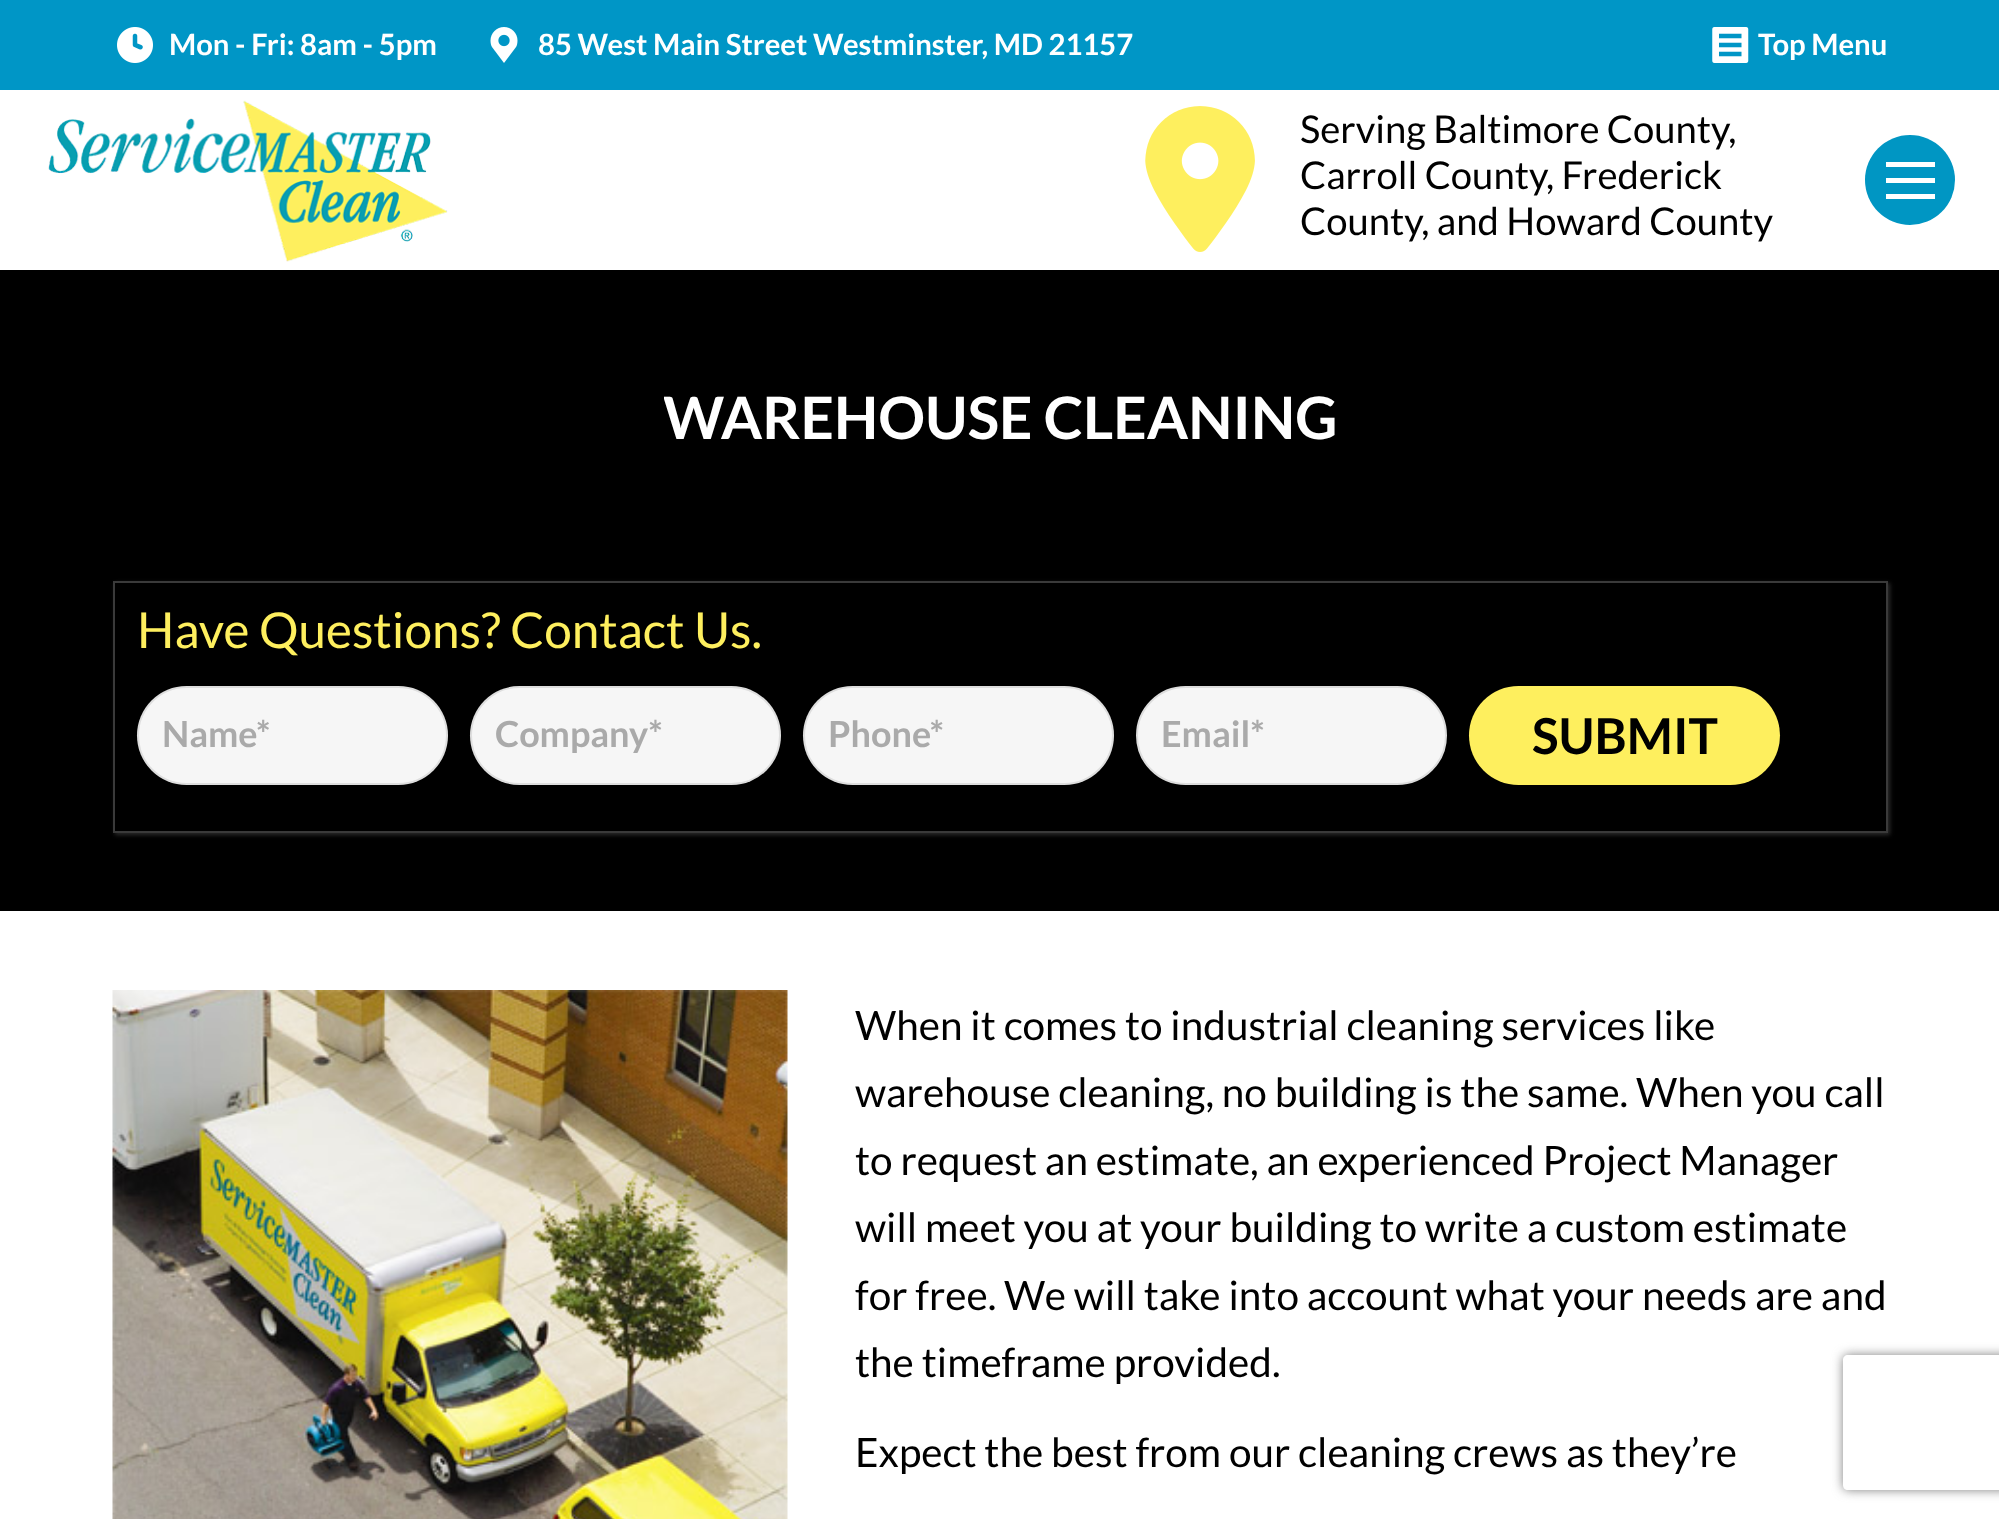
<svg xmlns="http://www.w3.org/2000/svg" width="1999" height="1519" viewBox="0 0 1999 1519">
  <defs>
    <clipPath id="clip1"><path d="M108 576H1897V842H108ZM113 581H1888V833H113Z" clip-rule="evenodd"/></clipPath>
    <clipPath id="clip2"><path d="M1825 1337H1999V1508H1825ZM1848 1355H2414C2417 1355 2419 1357 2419 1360V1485C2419 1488 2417 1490 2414 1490H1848C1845 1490 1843 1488 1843 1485V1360C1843 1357 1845 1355 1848 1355Z" clip-rule="evenodd"/></clipPath>
    <clipPath id="clip3"><path d="M664 380h673v72H664z"/></clipPath>
  </defs>
  <rect width="100%" height="100%" fill="#fff"/>
  <path d="M0 0h1999v90H0z" fill="#0096c6"/>
  <image x="117" y="27" width="36" height="36" href="img/1.png"/>
  <image x="490" y="27" width="28" height="36" href="img/2.png"/>
  <image x="1712" y="27" width="37" height="36" href="img/3.png"/>
  <image x="48" y="100" width="400" height="162" href="img/4.png"/>
  <image x="1145" y="106" width="110" height="146" href="img/5.png"/>
  <circle cx="1910" cy="180" r="45" fill="#0096c3"/>
  <path d="M1886 162h49v5H1886z" fill="#fff"/>
  <path d="M1886 178h49v5H1886z" fill="#fff"/>
  <path d="M1886 194h49v5H1886z" fill="#fff"/>
  <path d="M0 270h1999v641H0z" fill="#000"/>
  <g clip-path="url(#clip1)">
    <path d="M115 583h1775v252H115z" fill="#3a3a3abd" filter="blur(2px)"/>
  </g>
  <path d="M114 582h1773v250H114z" fill="none" stroke="#3a3a3a" stroke-width="2"/>
  <rect x="137" y="686" width="311" height="99" rx="49.5" fill="#f6f6f6"/>
  <rect x="138" y="687" width="309" height="97" rx="48.5" fill="none" stroke="#3333331f" stroke-width="2"/>
  <rect x="470" y="686" width="311" height="99" rx="49.5" fill="#f6f6f6"/>
  <rect x="471" y="687" width="309" height="97" rx="48.5" fill="none" stroke="#3333331f" stroke-width="2"/>
  <rect x="803" y="686" width="311" height="99" rx="49.5" fill="#f6f6f6"/>
  <rect x="804" y="687" width="309" height="97" rx="48.5" fill="none" stroke="#3333331f" stroke-width="2"/>
  <rect x="1137" y="687" width="309" height="97" rx="48.5" fill="#f6f6f6" stroke="#ddd" stroke-width="2"/>
  <rect x="1469" y="686" width="311" height="99" rx="49.5" fill="#feef5e"/>
  <image x="112" y="990" width="676" height="529" href="img/6.png"/>
  <g clip-path="url(#clip2)">
    <rect x="1843" y="1355" width="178" height="135" rx="5" fill="#808080" filter="blur(5.5px)"/>
  </g>
  <g font-family="Lato" font-size="29.25" font-weight="bold" fill="#fff">
    <text x="169" y="55">Mon - Fri: 8am - 5pm</text>
    <text x="538" y="55">85 West Main Street Westminster, MD 21157</text>
    <text x="1758" y="55">Top Menu</text>
  </g>
  <g font-family="Lato" font-size="38.25" fill="#000">
    <text x="1300" y="143">Serving Baltimore County,</text>
    <text x="1300" y="189">Carroll County, Frederick</text>
    <text x="1300" y="235">County, and Howard County</text>
  </g>
  <g clip-path="url(#clip3)">
    <text x="663" y="439" font-family="Lato" font-size="58.5" font-weight="bold" fill="#fff">WAREHOUSE CLEANING</text>
  </g>
  <text x="137" y="648" font-family="Lato" font-size="49.5" fill="#feef5e">Have Questions? Contact Us.</text>
  <g font-family="Lato" font-size="36" font-weight="bold" fill="#aaa">
    <text x="162" y="747">Name*</text>
    <text x="495" y="747">Company*</text>
    <text x="828" y="747">Phone*</text>
    <text x="1161" y="747">Email*</text>
  </g>
  <text x="1532" y="754" font-family="Lato" font-size="49.5" font-weight="bold" fill="#000">SUBMIT</text>
  <g font-family="Lato" font-size="40.5" fill="#000">
    <text x="855" y="1040">When it comes to industrial cleaning services like</text>
    <text x="855" y="1107">warehouse cleaning, no building is the same. When you call</text>
    <text x="855" y="1175">to request an estimate, an experienced Project Manager</text>
    <text x="855" y="1242">will meet you at your building to write a custom estimate</text>
    <text x="855" y="1310">for free. We will take into account what your needs are and</text>
    <text x="855" y="1377">the timeframe provided.</text>
    <text x="855" y="1467">Expect the best from our cleaning crews as they’re</text>
  </g>
</svg>
